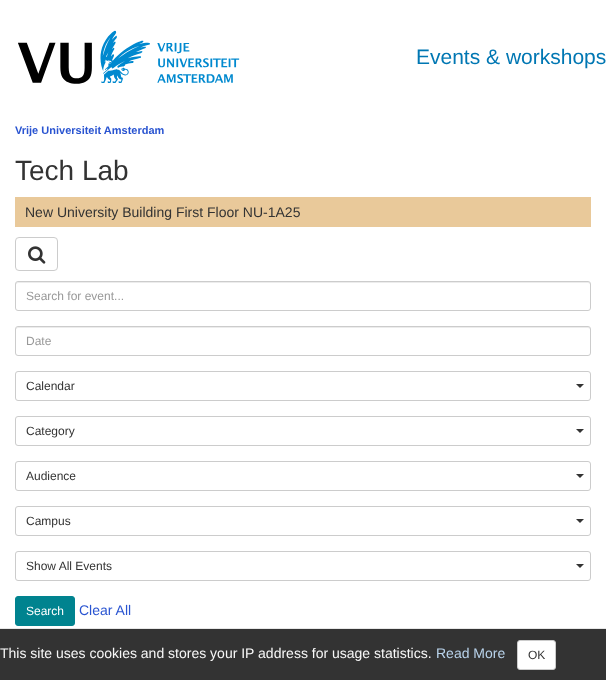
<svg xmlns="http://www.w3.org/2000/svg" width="606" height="680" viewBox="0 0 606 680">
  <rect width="100%" height="100%" fill="#fff"/>
  <image x="18" y="30" width="222" height="54" href="img/1.png"/>
  <path d="M15 197h576v30H15z" fill="#e9c99a"/>
  <rect x="15.5" y="237.5" width="42" height="33" rx="3.5" fill="none" stroke="#ccc"/>
  <image x="28" y="246" width="18" height="18" href="img/2.png"/>
  <path d="M18 283H588C589 283 590 284 590 285C590 284 590 282 588 282H18L16 283V285C16 284 17 283 18 283Z" fill="#ececec"/>
  <rect x="15.5" y="281.5" width="575" height="29" rx="2.5" fill="none" stroke="#ccc"/>
  <path d="M18 328H588C589 328 590 329 590 330C590 329 590 327 588 327H18L16 328V330C16 329 17 328 18 328Z" fill="#ececec"/>
  <rect x="15.5" y="326.5" width="575" height="29" rx="2.5" fill="none" stroke="#ccc"/>
  <rect x="15.5" y="371.5" width="575" height="29" rx="2.5" fill="none" stroke="#ccc"/>
  <path d="M576 384H584L580 388Z" fill="#333"/>
  <rect x="15.5" y="416.5" width="575" height="29" rx="2.5" fill="none" stroke="#ccc"/>
  <path d="M576 429H584L580 433Z" fill="#333"/>
  <rect x="15.5" y="461.5" width="575" height="29" rx="2.5" fill="none" stroke="#ccc"/>
  <path d="M576 474H584L580 478Z" fill="#333"/>
  <rect x="15.5" y="506.5" width="575" height="29" rx="2.5" fill="none" stroke="#ccc"/>
  <path d="M576 519H584L580 523Z" fill="#333"/>
  <rect x="15.5" y="551.5" width="575" height="29" rx="2.5" fill="none" stroke="#ccc"/>
  <path d="M576 564H584L580 568Z" fill="#333"/>
  <rect x="15.5" y="596.5" width="59" height="29" rx="2.5" fill="#00838f" stroke="#00838f"/>
  <path d="M0 629h606v51H0z" fill="#333"/>
  <path d="M0 628h606v1H0z" fill="#e7e7e7"/>
  <rect x="517.5" y="640.5" width="38" height="29" rx="2.5" fill="#fff" stroke="#ccc"/>
  <text x="416" y="64" font-family="Liberation Sans" font-size="21" fill="#0077b3">Events &amp; workshops</text>
  <text x="15" y="134" font-family="Liberation Sans" font-size="11" font-weight="bold" fill="#2954d1">Vrije Universiteit Amsterdam</text>
  <text x="15" y="180" font-family="Liberation Sans" font-size="28" fill="#333">Tech Lab</text>
  <text x="25" y="217" font-family="Liberation Sans" font-size="14" fill="#333">New University Building First Floor NU-1A25</text>
  <g font-family="Liberation Sans" font-size="12" fill="#999">
    <text x="26" y="300">Search for event...</text>
    <text x="26" y="345">Date</text>
  </g>
  <g font-family="Liberation Sans" font-size="12" fill="#333">
    <text x="26" y="390">Calendar</text>
    <text x="26" y="435">Category</text>
    <text x="26" y="480">Audience</text>
    <text x="26" y="525">Campus</text>
    <text x="26" y="570">Show All Events</text>
  </g>
  <text x="26" y="615" font-family="Liberation Sans" font-size="12" fill="#fff">Search</text>
  <text x="79" y="615" font-family="Liberation Sans" font-size="14" fill="#2954d1">Clear All</text>
  <text x="0" y="658" font-family="Liberation Sans" font-size="14" fill="#f8f8f8">This site uses cookies and stores your IP address for usage statistics.</text>
  <text x="436" y="658" font-family="Liberation Sans" font-size="14" fill="#b9d3eb">Read More</text>
  <text x="528" y="659" font-family="Liberation Sans" font-size="12" fill="#333">OK</text>
</svg>
